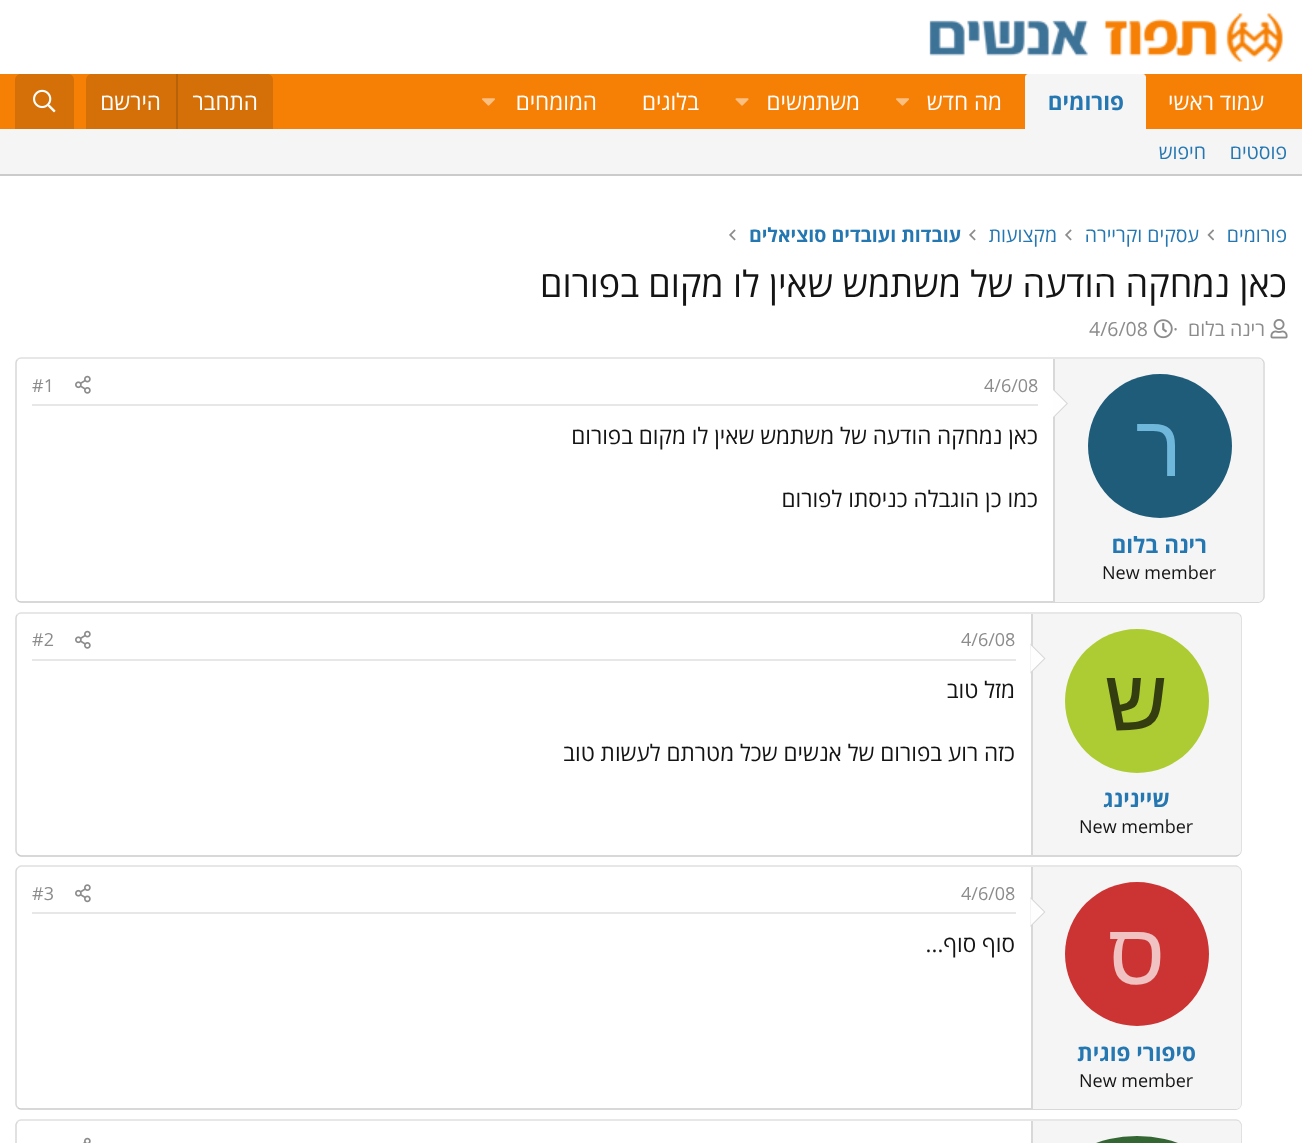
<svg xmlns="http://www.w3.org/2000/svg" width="1302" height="1143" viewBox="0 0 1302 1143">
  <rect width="100%" height="100%" fill="#fff"/>
  <image x="929" y="13" width="354" height="49" href="img/1.png"/>
  <path d="M0 74h1302v55H0z" fill="#f68005"/>
  <path d="M1028 74H1143C1144.5 74 1146 75.5 1146 77V129H1025V77C1025 75.5 1026.5 74 1028 74Z" fill="#f5f5f5"/>
  <image x="896" y="98" width="13" height="8" href="img/2.png"/>
  <image x="735" y="98" width="14" height="8" href="img/3.png"/>
  <image x="482" y="98" width="13" height="8" href="img/2.png"/>
  <path d="M92 74H267C270.5 74 273 76.5 273 80V129H86V80C86 76.5 88.5 74 92 74Z" fill="#d47007"/>
  <path d="M176 74h2v55H176z" fill="#b76209"/>
  <path d="M21 74H68C71.5 74 74 76.5 74 80V129H15V80C15 76.5 17.5 74 21 74Z" fill="#d47007"/>
  <image x="33" y="89" width="23" height="24" href="img/4.png"/>
  <path d="M0 129h1302v45H0z" fill="#f5f5f5"/>
  <path d="M0 174h1302v2H0z" fill="#cbcbcb"/>
  <image x="1207" y="229" width="7" height="12" href="img/5.png"/>
  <image x="1065" y="229" width="7" height="12" href="img/6.png"/>
  <image x="969" y="229" width="7" height="12" href="img/6.png"/>
  <image x="729" y="229" width="7" height="12" href="img/6.png"/>
  <image x="1270" y="319" width="18" height="20" href="img/7.png"/>
  <image x="1153" y="319" width="20" height="20" href="img/8.png"/>
  <path d="M17.5 359.5C18.5 358.5 19.5 358 21 358H1258.5C1260 358 1261 358.5 1262 359.5" fill="none" stroke="#dfdfdf" stroke-width="1.5"/>
  <path d="M1262 359.5C1263 360.5 1264 361.5 1264 363V597C1264 598.5 1263 599.5 1262 600.5" fill="none" stroke="#d8d8d8" stroke-width="1.5"/>
  <path d="M1262 600.5C1261 601.5 1260 602 1258.5 602H21C19.5 602 18.5 601.5 17.5 600.5" fill="none" stroke="#cbcbcb" stroke-width="1.5"/>
  <path d="M17.5 600.5C16.5 599.5 16 598.5 16 597V363C16 361.5 16.5 360.5 17.5 359.5" fill="none" stroke="#d8d8d8" stroke-width="1.5"/>
  <path d="M1053 359H1258C1261 359 1263 361 1263 364V597C1263 600 1261 602 1258 602H1053Z" fill="#f5f5f5"/>
  <path d="M1053 359h2v243H1053z" fill="#d8d8d8"/>
  <path d="M1053 418.5V388.5L1068 403.5Z" fill="#d8d8d8"/>
  <path d="M1053 417V390L1066.5 403.5Z" fill="#fefefe"/>
  <circle cx="1160" cy="446" r="72" fill="#1f5c7a"/>
  <path d="M32 404h1006v2H32z" fill="#e7e7e7"/>
  <image x="75" y="375" width="16" height="19" href="img/9.png"/>
  <path d="M17.5 614.5C18.5 613.5 19.5 613 21 613H1236C1237.5 613 1238.5 613.5 1239.5 614.5" fill="none" stroke="#dfdfdf" stroke-width="1.5"/>
  <path d="M1239.5 614.5C1240.5 615.5 1241 616.5 1241 618V850.5C1241 852 1240.5 853 1239.5 854" fill="none" stroke="#d8d8d8" stroke-width="1.5"/>
  <path d="M1239.5 854C1238.5 855 1237.5 856 1236 856H21C19.5 856 18.5 855 17.5 854" fill="none" stroke="#cbcbcb" stroke-width="1.5"/>
  <path d="M17.5 854C16.5 853 16 852 16 850.5V618C16 616.5 16.5 615.5 17.5 614.5" fill="none" stroke="#d8d8d8" stroke-width="1.5"/>
  <path d="M1031 614H1236C1239 614 1241 616 1241 619V850C1241 853 1239 855 1236 855H1031Z" fill="#f5f5f5"/>
  <path d="M1031 614h2v241H1031z" fill="#d8d8d8"/>
  <path d="M1030.5 673.5V643.5L1045.5 658.5Z" fill="#d8d8d8"/>
  <path d="M1030.5 672V645L1044 658.5Z" fill="#fefefe"/>
  <circle cx="1137" cy="701" r="72" fill="#adcc33"/>
  <path d="M32 659h984v2H32z" fill="#e7e7e7"/>
  <image x="75" y="630" width="16" height="19" href="img/9.png"/>
  <path d="M17.5 868C18.5 867 19.5 866 21 866H1236C1237.5 866 1238.5 867 1239.5 868" fill="none" stroke="#dfdfdf" stroke-width="1.5"/>
  <path d="M1239.5 868C1240.5 869 1241 870 1241 871.5V1104C1241 1105.5 1240.5 1106.5 1239.5 1107.5" fill="none" stroke="#d8d8d8" stroke-width="1.5"/>
  <path d="M1239.5 1107.5C1238.5 1108.5 1237.5 1109 1236 1109H21C19.5 1109 18.5 1108.5 17.5 1107.5" fill="none" stroke="#cbcbcb" stroke-width="1.5"/>
  <path d="M17.5 1107.5C16.5 1106.5 16 1105.5 16 1104V871.5C16 870 16.5 869 17.5 868" fill="none" stroke="#d8d8d8" stroke-width="1.5"/>
  <path d="M32 912h984v2H32z" fill="#e7e7e7"/>
  <image x="75" y="884" width="16" height="19" href="img/10.png"/>
  <path d="M1031 867H1236C1239 867 1241 869 1241 872V1104C1241 1107 1239 1109 1236 1109H1031Z" fill="#f5f5f5"/>
  <path d="M1031 867h2v242H1031z" fill="#d8d8d8"/>
  <path d="M1030.5 927V897L1045.5 912Z" fill="#d8d8d8"/>
  <path d="M1030.5 925.5V898.5L1044 912Z" fill="#fefefe"/>
  <circle cx="1137" cy="954" r="72" fill="#c33"/>
  <path d="M17.5 1121.5C18.5 1120.5 19.5 1120 21 1120H1236C1237.5 1120 1238.5 1120.5 1239.5 1121.5" fill="none" stroke="#dfdfdf" stroke-width="1.5"/>
  <path d="M1239.5 1121.5L1241 1124.5V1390.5C1241 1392 1240.5 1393 1239.5 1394" fill="none" stroke="#d8d8d8" stroke-width="1.5"/>
  <path d="M17.5 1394C16.5 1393 16 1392 16 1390.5V1124.5L17.5 1121.5" fill="none" stroke="#d8d8d8" stroke-width="1.5"/>
  <path d="M1031 1121H1236C1239 1121 1241 1123 1241 1126V1143C1241 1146 1239 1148 1236 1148H1031Z" fill="#f5f5f5"/>
  <path d="M1031 1121h2v22H1031z" fill="#d8d8d8"/>
  <rect x="1065" y="1136" width="144" height="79" rx="72" fill="#363"/>
  <image x="83" y="1137" width="8" height="6" href="img/11.png"/>
  <text x="1264" y="110" font-family="Open Sans" font-size="22.5" direction="rtl" fill="#fefefe">עמוד ראשי</text>
  <text x="1124" y="110" font-family="Open Sans" font-size="22.5" font-weight="bold" direction="rtl" fill="#2577b1">פורומים</text>
  <g font-family="Open Sans" font-size="22.5" direction="rtl" fill="#fefefe">
    <text x="1002" y="110">מה חדש</text>
    <text x="860" y="110">משתמשים</text>
    <text x="699" y="110">בלוגים</text>
    <text x="597" y="110">המומחים</text>
    <text x="258" y="110">התחבר</text>
    <text x="161" y="110">הירשם</text>
  </g>
  <g font-family="Open Sans" font-size="19.5" direction="rtl" fill="#2577b1">
    <text x="1287" y="159">פוסטים</text>
    <text x="1206" y="159">חיפוש</text>
    <text x="1287" y="242">פורומים</text>
    <text x="1199" y="242">עסקים וקריירה</text>
    <text x="1057" y="242">מקצועות</text>
  </g>
  <text x="961" y="242" font-family="Open Sans" font-size="19.5" font-weight="bold" direction="rtl" fill="#2577b1">עובדות ועובדים סוציאלים</text>
  <text x="1287" y="297" font-family="Open Sans" font-size="36" direction="rtl" fill="#141414">כאן נמחקה הודעה של משתמש שאין לו מקום בפורום</text>
  <text x="1265" y="336" font-family="Open Sans" font-size="19.5" direction="rtl" fill="#8c8c8c">רינה בלום</text>
  <g font-family="Open Sans" font-size="19.5" fill="#8c8c8c">
    <text x="1173" y="336">·</text>
    <text x="1089" y="336">4/6/08</text>
  </g>
  <text x="1182" y="476" font-family="Liberation Sans" font-size="87" direction="rtl" fill="#70b8db">ר</text>
  <text x="1207" y="553" font-family="Open Sans" font-size="22.5" font-weight="bold" direction="rtl" fill="#2577b1">רינה בלום</text>
  <text x="1102" y="579" font-family="Open Sans" font-size="18" fill="#141414">New member</text>
  <g font-family="Open Sans" font-size="18" fill="#8c8c8c">
    <text x="984" y="392">4/6/08</text>
    <text x="32" y="392">#1</text>
  </g>
  <g font-family="Open Sans" font-size="22.5" direction="rtl" fill="#141414">
    <text x="1038" y="444">כאן נמחקה הודעה של משתמש שאין לו מקום בפורום</text>
    <text x="1038" y="507">כמו כן הוגבלה כניסתו לפורום</text>
  </g>
  <text x="1168" y="730" font-family="Liberation Sans" font-size="87" direction="rtl" fill="#343d0f">ש</text>
  <text x="1170" y="807" font-family="Open Sans" font-size="22.5" font-weight="bold" direction="rtl" fill="#2577b1">שיינינג</text>
  <text x="1079" y="833" font-family="Open Sans" font-size="18" fill="#141414">New member</text>
  <g font-family="Open Sans" font-size="18" fill="#8c8c8c">
    <text x="961" y="646">4/6/08</text>
    <text x="32" y="646">#2</text>
  </g>
  <g font-family="Open Sans" font-size="22.5" direction="rtl" fill="#141414">
    <text x="1015" y="698">מזל טוב</text>
    <text x="1015" y="761">כזה רוע בפורום של אנשים שכל מטרתם לעשות טוב</text>
  </g>
  <g font-family="Open Sans" font-size="18" fill="#8c8c8c">
    <text x="961" y="900">4/6/08</text>
    <text x="32" y="900">#3</text>
  </g>
  <text x="1015" y="952" font-family="Open Sans" font-size="22.5" direction="rtl" fill="#141414">סוף סוף...</text>
  <text x="1165" y="984" font-family="Liberation Sans" font-size="87" direction="rtl" fill="#f0c2c2">ס</text>
  <text x="1196" y="1061" font-family="Open Sans" font-size="22.5" font-weight="bold" direction="rtl" fill="#2577b1">סיפורי פוגית</text>
  <text x="1079" y="1087" font-family="Open Sans" font-size="18" fill="#141414">New member</text>
</svg>
